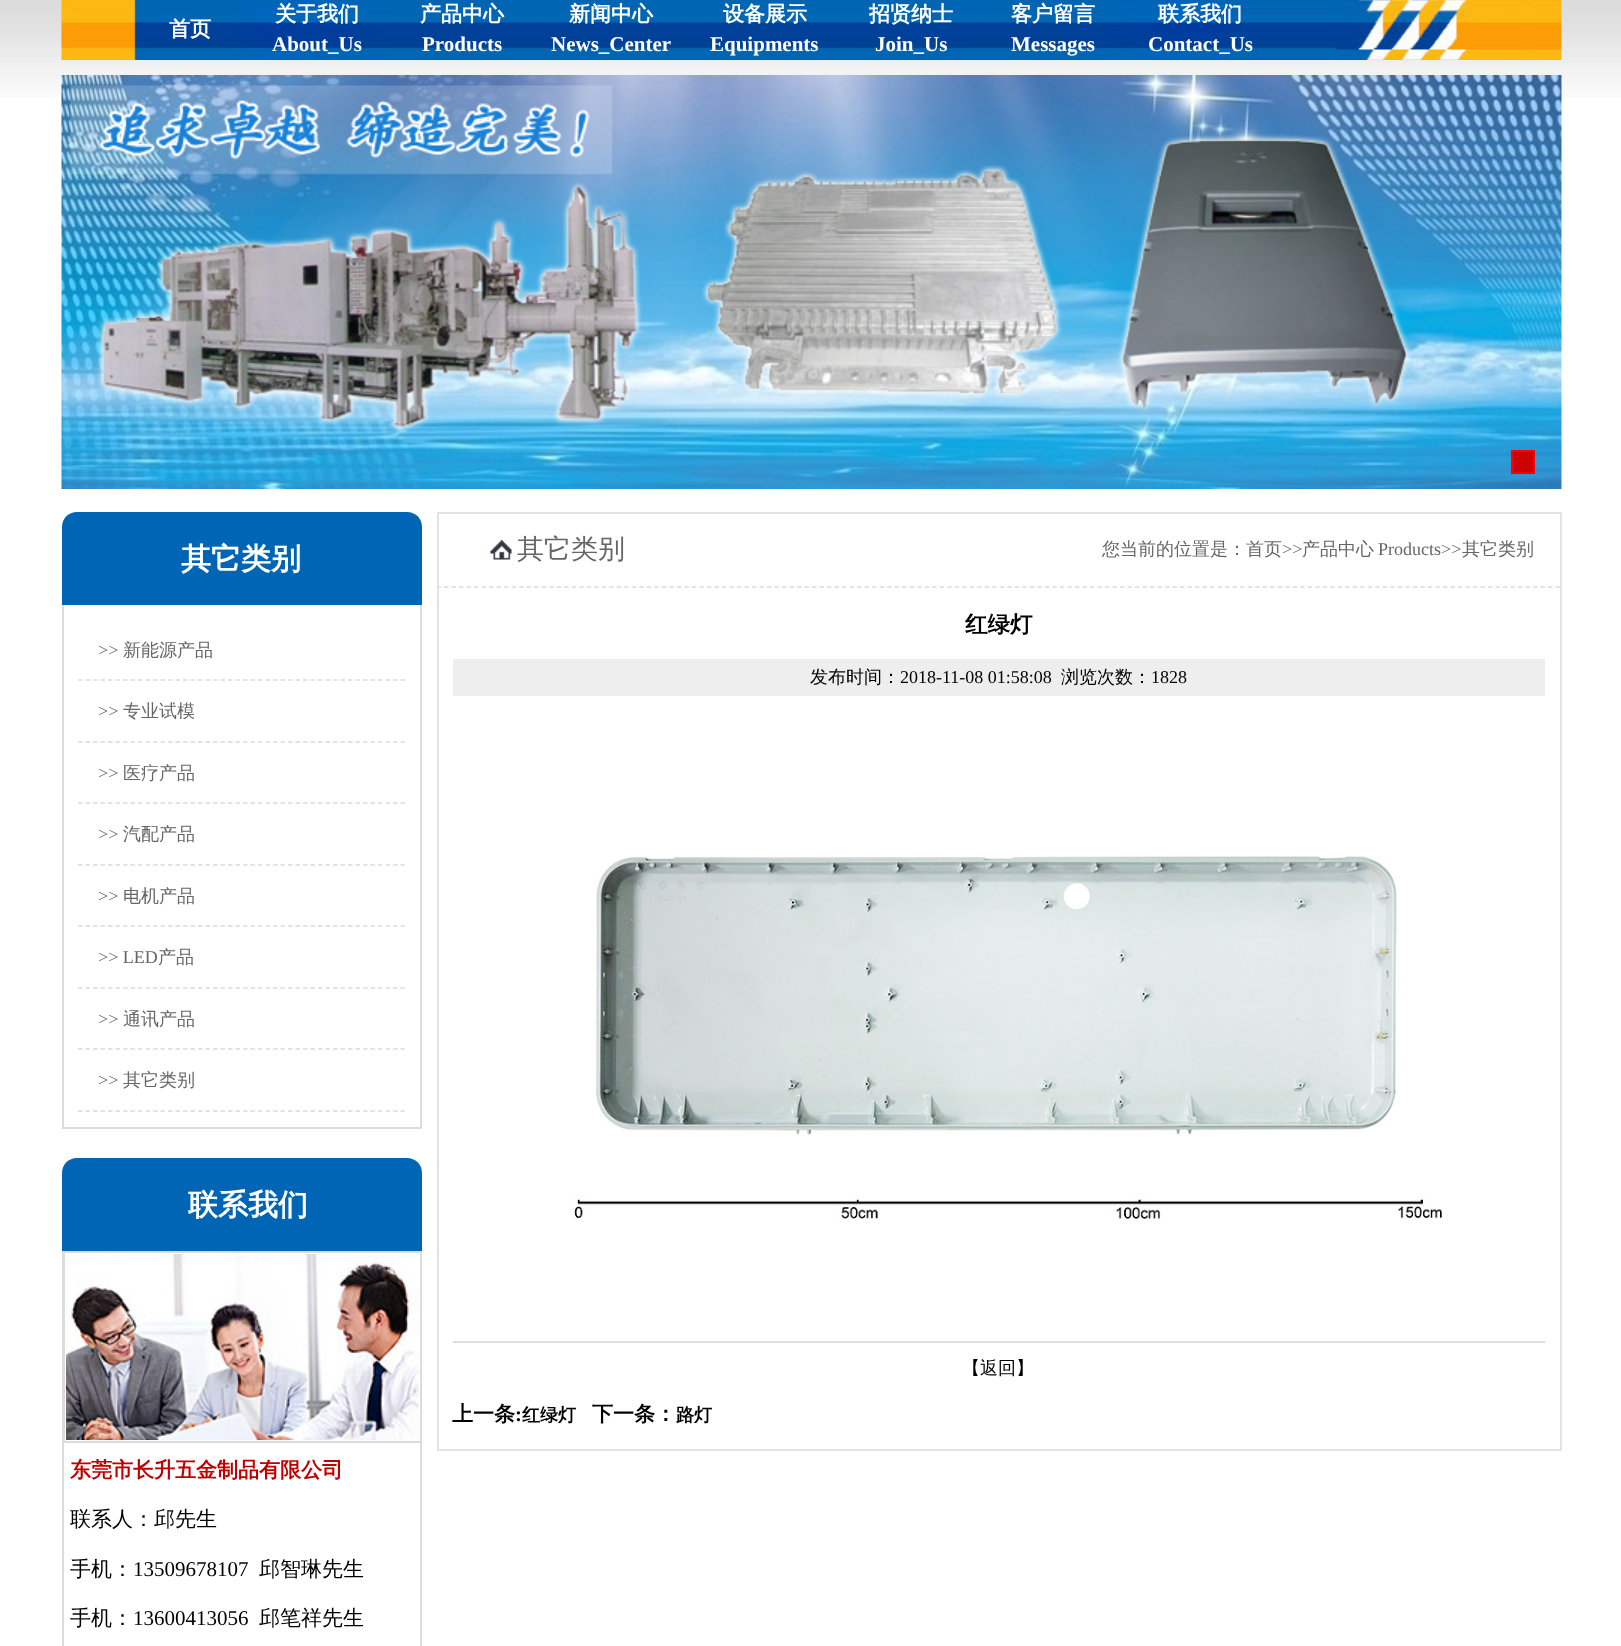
<svg xmlns="http://www.w3.org/2000/svg" width="1621" height="1646" viewBox="0 0 1621 1646">
  <rect width="100%" height="100%" fill="#fff"/>
  <image x="0" y="0" width="1621" height="97" href="img/1.png"/>
  <image x="61" y="0" width="1501" height="60" href="img/2.png"/>
  <image x="61" y="75" width="1501" height="414" href="img/3.png"/>
  <path d="M1512 451h22v22H1512z" fill="#c00" stroke="#f00" stroke-width="2"/>
  <path d="M77 512H407C415.5 512 422 518.5 422 527V605H62V527C62 518.5 68.5 512 77 512Z" fill="#0065b5"/>
  <path d="M420 605h2v523H420z" fill="#dcdcdc"/>
  <path d="M62 1127h360v2H62z" fill="#dcdcdc"/>
  <path d="M62 605h2v523H62z" fill="#dcdcdc"/>
  <path d="M78 680H405" fill="none" stroke="#dcdcdc" stroke-width="1.5" stroke-dasharray="4.5 3"/>
  <path d="M78 742H405" fill="none" stroke="#dcdcdc" stroke-width="1.5" stroke-dasharray="4.5 3"/>
  <path d="M78 803H405" fill="none" stroke="#dcdcdc" stroke-width="1.5" stroke-dasharray="4.5 3"/>
  <path d="M78 865H405" fill="none" stroke="#dcdcdc" stroke-width="1.5" stroke-dasharray="4.5 3"/>
  <path d="M78 926H405" fill="none" stroke="#dcdcdc" stroke-width="1.5" stroke-dasharray="4.5 3"/>
  <path d="M78 988H405" fill="none" stroke="#dcdcdc" stroke-width="1.5" stroke-dasharray="4.5 3"/>
  <path d="M78 1049H405" fill="none" stroke="#dcdcdc" stroke-width="1.5" stroke-dasharray="4.5 3"/>
  <path d="M78 1111H405" fill="none" stroke="#dcdcdc" stroke-width="1.5" stroke-dasharray="4.5 3"/>
  <path d="M77 1158H407C415.5 1158 422 1164.5 422 1173V1251H62V1173C62 1164.5 68.5 1158 77 1158Z" fill="#0065b5"/>
  <path d="M420 1443h2v203H420z" fill="#dcdcdc"/>
  <path d="M62 1251h2v395H62z" fill="#dcdcdc"/>
  <path d="M64 1252h357v190H64z" fill="none" stroke="#dcdcdc" stroke-width="2"/>
  <image x="66" y="1254" width="353" height="186" href="img/4.png"/>
  <path d="M437 512h1125v2H437z" fill="#e2e2e2"/>
  <path d="M1560 512h2v939H1560z" fill="#e2e2e2"/>
  <path d="M436.5 587H1561.5" fill="none" stroke="#dbdbdb" stroke-width="1.5" stroke-dasharray="4.5 3.01"/>
  <path d="M437 512h2v76H437z" fill="#e2e2e2"/>
  <image x="490" y="540" width="22" height="20" href="img/5.png"/>
  <path d="M437 1449h1125v2H437z" fill="#e2e2e2"/>
  <path d="M437 588h2v863H437z" fill="#e2e2e2"/>
  <path d="M453 659h1092v37H453z" fill="#eee"/>
  <path d="M453 1341h1092v2H453z" fill="#dedede"/>
  <image x="574" y="856" width="868" height="363" href="img/6.png"/>
  <g font-family="WenQuanYi Zen Hei" font-size="21" font-weight="bold" fill="#fff">
    <text x="169" y="36">首页</text>
    <text x="275" y="21">关于我们</text>
  </g>
  <text x="272" y="51" font-family="Liberation Serif" font-size="21" font-weight="bold" fill="#fff">About_Us</text>
  <text x="420" y="21" font-family="WenQuanYi Zen Hei" font-size="21" font-weight="bold" fill="#fff">产品中心</text>
  <text x="422" y="51" font-family="Liberation Serif" font-size="21" font-weight="bold" fill="#fff">Products</text>
  <text x="569" y="21" font-family="WenQuanYi Zen Hei" font-size="21" font-weight="bold" fill="#fff">新闻中心</text>
  <text x="551" y="51" font-family="Liberation Serif" font-size="21" font-weight="bold" fill="#fff">News_Center</text>
  <text x="723" y="21" font-family="WenQuanYi Zen Hei" font-size="21" font-weight="bold" fill="#fff">设备展示</text>
  <text x="710" y="51" font-family="Liberation Serif" font-size="21" font-weight="bold" fill="#fff">Equipments</text>
  <text x="869" y="21" font-family="WenQuanYi Zen Hei" font-size="21" font-weight="bold" fill="#fff">招贤纳士</text>
  <text x="875" y="51" font-family="Liberation Serif" font-size="21" font-weight="bold" fill="#fff">Join_Us</text>
  <text x="1011" y="21" font-family="WenQuanYi Zen Hei" font-size="21" font-weight="bold" fill="#fff">客户留言</text>
  <text x="1011" y="51" font-family="Liberation Serif" font-size="21" font-weight="bold" fill="#fff">Messages</text>
  <text x="1158" y="21" font-family="WenQuanYi Zen Hei" font-size="21" font-weight="bold" fill="#fff">联系我们</text>
  <text x="1148" y="51" font-family="Liberation Serif" font-size="21" font-weight="bold" fill="#fff">Contact_Us</text>
  <text x="181" y="569" font-family="WenQuanYi Zen Hei" font-size="30" font-weight="bold" fill="#fff">其它类别</text>
  <text x="98" y="656" font-family="Liberation Serif" font-size="18" fill="#666">&gt;&gt;</text>
  <text x="123" y="656" font-family="WenQuanYi Zen Hei" font-size="18" font-weight="500" fill="#666">新能源产品</text>
  <text x="98" y="717" font-family="Liberation Serif" font-size="18" fill="#666">&gt;&gt;</text>
  <text x="123" y="717" font-family="WenQuanYi Zen Hei" font-size="18" font-weight="500" fill="#666">专业试模</text>
  <text x="98" y="779" font-family="Liberation Serif" font-size="18" fill="#666">&gt;&gt;</text>
  <text x="123" y="779" font-family="WenQuanYi Zen Hei" font-size="18" font-weight="500" fill="#666">医疗产品</text>
  <text x="98" y="840" font-family="Liberation Serif" font-size="18" fill="#666">&gt;&gt;</text>
  <text x="123" y="840" font-family="WenQuanYi Zen Hei" font-size="18" font-weight="500" fill="#666">汽配产品</text>
  <text x="98" y="902" font-family="Liberation Serif" font-size="18" fill="#666">&gt;&gt;</text>
  <text x="123" y="902" font-family="WenQuanYi Zen Hei" font-size="18" font-weight="500" fill="#666">电机产品</text>
  <text x="98" y="963" font-family="Liberation Serif" font-size="18" fill="#666">&gt;&gt; LED</text>
  <text x="158" y="963" font-family="WenQuanYi Zen Hei" font-size="18" font-weight="500" fill="#666">产品</text>
  <text x="98" y="1025" font-family="Liberation Serif" font-size="18" fill="#666">&gt;&gt;</text>
  <text x="123" y="1025" font-family="WenQuanYi Zen Hei" font-size="18" font-weight="500" fill="#666">通讯产品</text>
  <text x="98" y="1086" font-family="Liberation Serif" font-size="18" fill="#666">&gt;&gt;</text>
  <text x="123" y="1086" font-family="WenQuanYi Zen Hei" font-size="18" font-weight="500" fill="#666">其它类别</text>
  <text x="188" y="1215" font-family="WenQuanYi Zen Hei" font-size="30" font-weight="bold" fill="#fff">联系我们</text>
  <text x="70" y="1477" font-family="WenQuanYi Zen Hei" font-size="21" font-weight="bold" fill="#c00000">东莞市长升五金制品有限公司</text>
  <g font-family="WenQuanYi Zen Hei" font-size="21" font-weight="500" fill="#000">
    <text x="70" y="1526">联系人：邱先生</text>
    <text x="70" y="1576">手机：</text>
  </g>
  <text x="133" y="1576" font-family="Liberation Serif" font-size="21" fill="#000">13509678107</text>
  <g font-family="WenQuanYi Zen Hei" font-size="21" font-weight="500" fill="#000">
    <text x="259" y="1576">邱智琳先生</text>
    <text x="70" y="1625">手机：</text>
  </g>
  <text x="133" y="1625" font-family="Liberation Serif" font-size="21" fill="#000">13600413056</text>
  <text x="259" y="1625" font-family="WenQuanYi Zen Hei" font-size="21" font-weight="500" fill="#000">邱笔祥先生</text>
  <text x="517" y="558" font-family="WenQuanYi Zen Hei" font-size="27" font-weight="500" fill="#666">其它类别</text>
  <text x="1102" y="555" font-family="WenQuanYi Zen Hei" font-size="18" font-weight="500" fill="#666">您当前的位置是：首页</text>
  <text x="1282" y="555" font-family="Liberation Serif" font-size="18" fill="#666">&gt;&gt;</text>
  <text x="1302" y="555" font-family="WenQuanYi Zen Hei" font-size="18" font-weight="500" fill="#666">产品中心</text>
  <text x="1378" y="555" font-family="Liberation Serif" font-size="18" fill="#666">Products&gt;&gt;</text>
  <text x="1462" y="555" font-family="WenQuanYi Zen Hei" font-size="18" font-weight="500" fill="#666">其它类别</text>
  <text x="965" y="632" font-family="WenQuanYi Zen Hei" font-size="22.5" font-weight="bold" fill="#000">红绿灯</text>
  <text x="810" y="683" font-family="WenQuanYi Zen Hei" font-size="18" font-weight="500" fill="#000">发布时间：</text>
  <text x="900" y="683" font-family="Liberation Serif" font-size="18" fill="#000">2018-11-08 01:58:08</text>
  <text x="1061" y="683" font-family="WenQuanYi Zen Hei" font-size="18" font-weight="500" fill="#000">浏览次数：</text>
  <text x="1151" y="683" font-family="Liberation Serif" font-size="18" fill="#000">1828</text>
  <text x="962" y="1374" font-family="WenQuanYi Zen Hei" font-size="18" font-weight="500" fill="#000">【返回】</text>
  <text x="452" y="1421" font-family="WenQuanYi Zen Hei" font-size="21" font-weight="bold" fill="#000">上一条</text>
  <text x="515" y="1421" font-family="Liberation Serif" font-size="21" font-weight="bold" fill="#000">:</text>
  <text x="522" y="1421" font-family="WenQuanYi Zen Hei" font-size="18" font-weight="bold" fill="#000">红绿灯</text>
  <text x="592" y="1421" font-family="WenQuanYi Zen Hei" font-size="21" font-weight="bold" fill="#000">下一条：</text>
  <text x="676" y="1421" font-family="WenQuanYi Zen Hei" font-size="18" font-weight="bold" fill="#000">路灯</text>
</svg>
